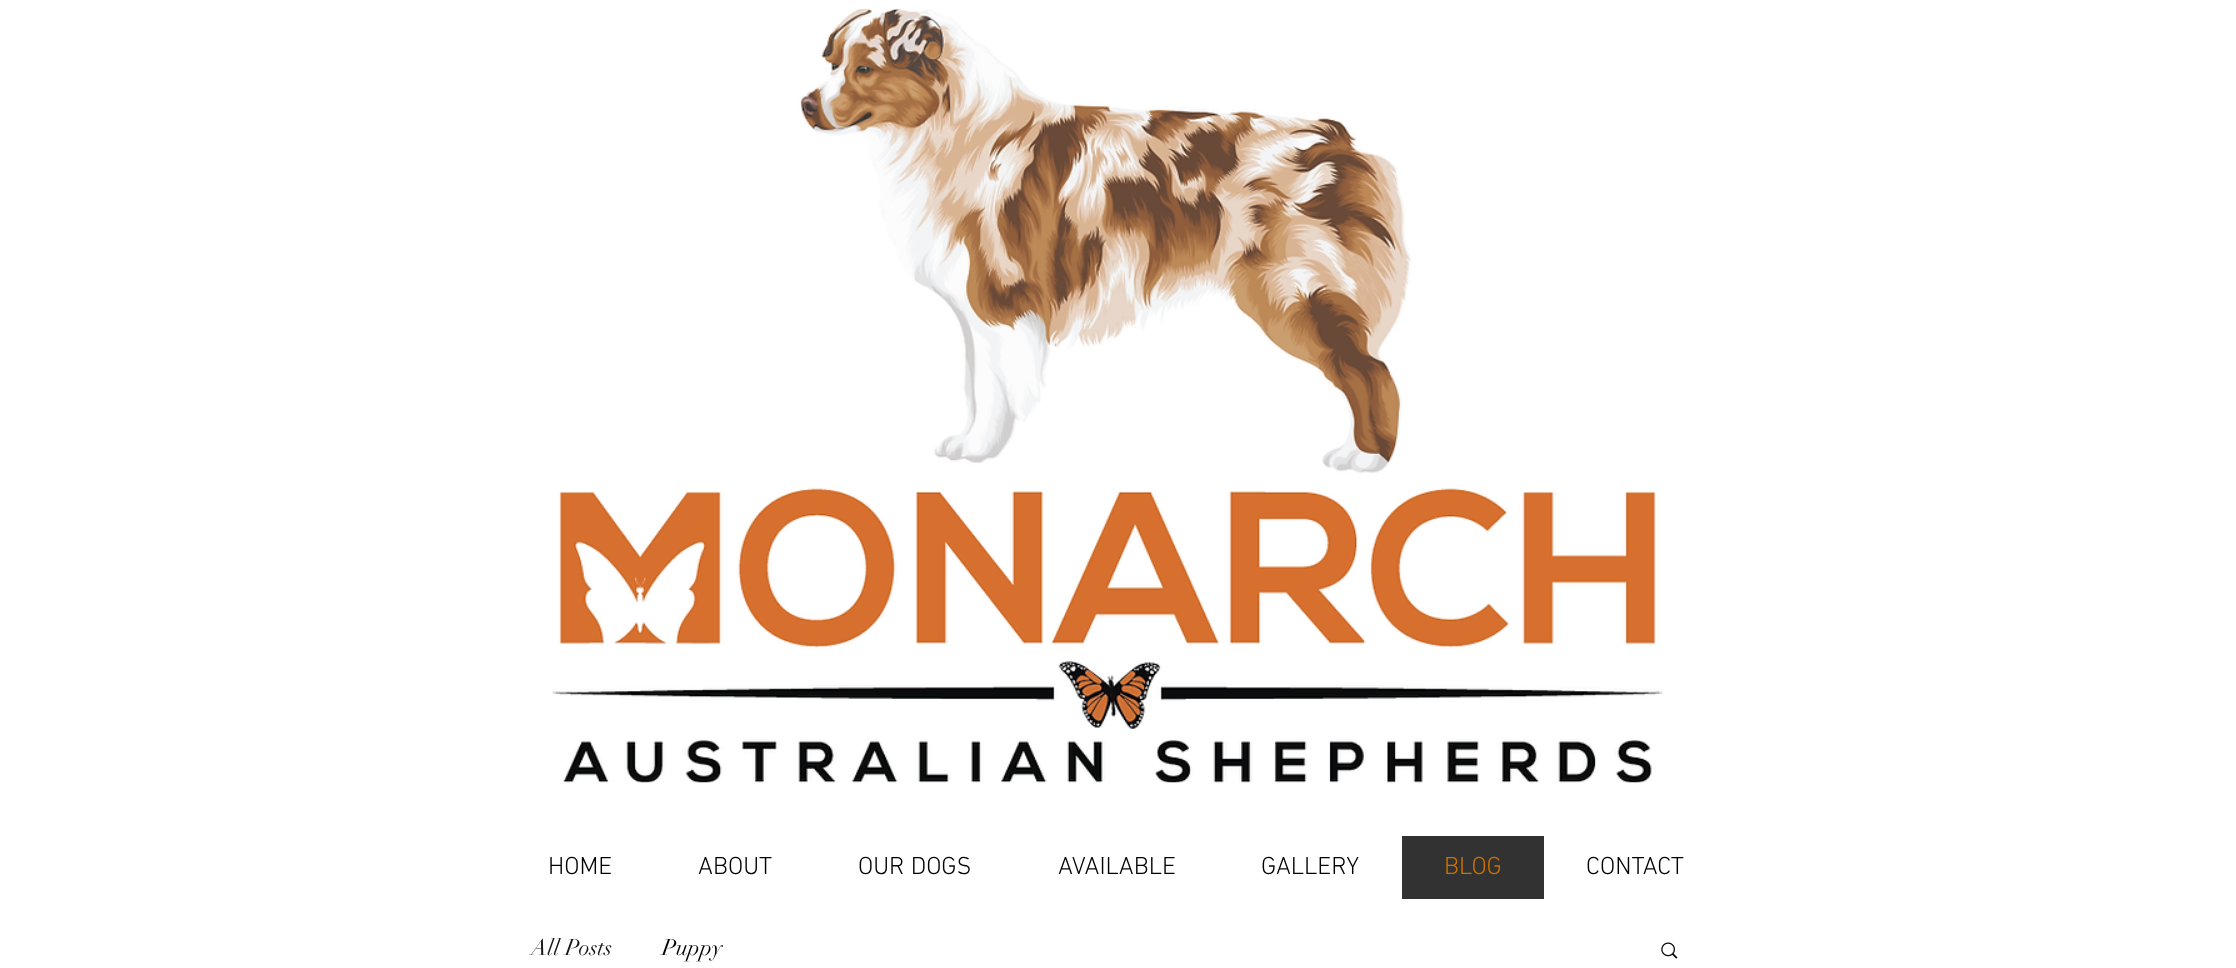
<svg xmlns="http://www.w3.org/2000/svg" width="2236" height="968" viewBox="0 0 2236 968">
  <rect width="100%" height="100%" fill="#fff"/>
  <image x="552" y="8" width="1111" height="775" href="img/1.png"/>
  <path d="M1402 836h142v63H1402z" fill="#323232"/>
  <image x="1661" y="942" width="17" height="17" href="img/2.png"/>
  <g font-family="'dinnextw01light'" font-size="25" font-weight="300" fill="#000">
    <text x="548" y="874">HOME</text>
    <text x="698" y="874">ABOUT</text>
    <text x="858" y="874">OUR DOGS</text>
    <text x="1058" y="874">AVAILABLE</text>
    <text x="1261" y="874">GALLERY</text>
  </g>
  <text x="1444" y="874" font-family="'dinnextw01light'" font-size="25" font-weight="300" fill="#cc7101">BLOG</text>
  <text x="1586" y="874" font-family="'dinnextw01light'" font-size="25" font-weight="300" fill="#000">CONTACT</text>
  <text x="531" y="955" font-family="didot" font-size="22.5" fill="#181818">All Posts</text>
  <text x="662" y="955" font-family="didot" font-size="22.5" fill="#000">Puppy</text>
</svg>
